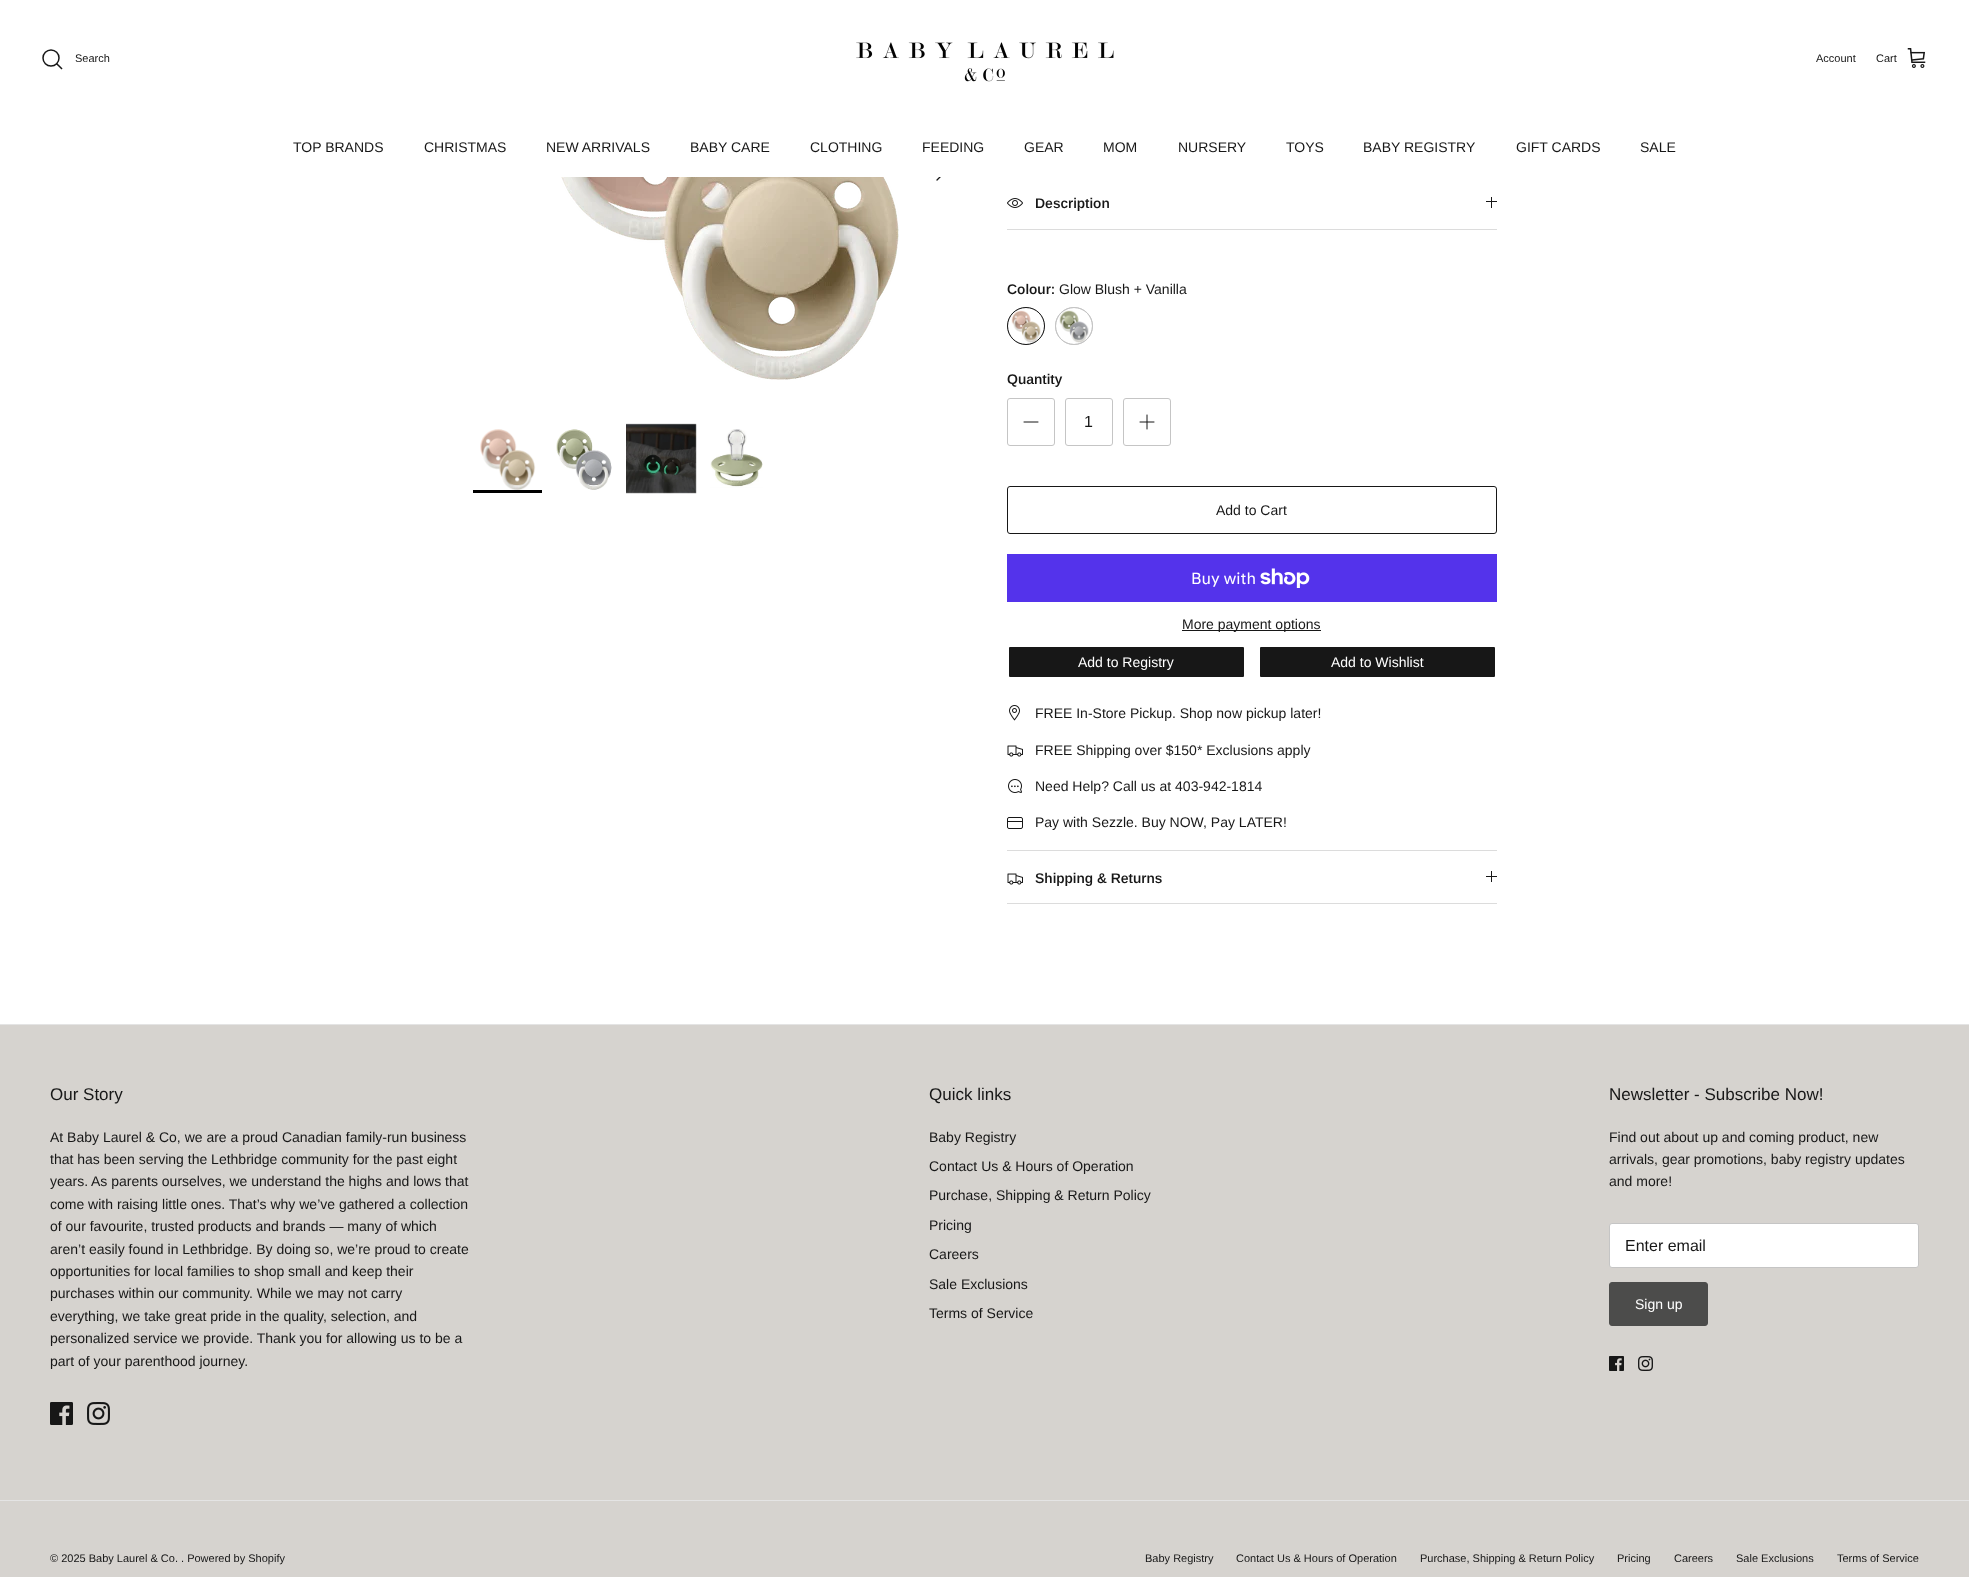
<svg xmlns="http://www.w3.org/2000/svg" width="1969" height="1577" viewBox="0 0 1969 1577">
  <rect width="100%" height="100%" fill="#fff"/>
  <circle cx="51" cy="58" r="8" fill="none" stroke="#171717" stroke-width="1.5"/>
  <path d="M57 64L61.5 68.5" fill="none" stroke="#171717" stroke-width="1.5" stroke-linecap="square"/>
  <image x="856" y="42" width="258" height="40" href="img/1.png"/>
  <image x="1907" y="48" width="19" height="20" href="img/2.png"/>
  <path d="M937 180L945 172L937 164" fill="none" stroke="#171717" stroke-width="1.3" stroke-linecap="round" stroke-linejoin="round"/>
  <path d="M939 176h3v1H939z" fill="#fff"/>
  <path d="M936 163h10v13H936z" fill="#fff"/>
  <image x="561" y="177" width="338" height="203" href="img/3.png"/>
  <image x="480" y="429" width="56" height="61" href="img/4.png"/>
  <path d="M473 490h69v3H473z" fill="#000"/>
  <image x="556" y="429" width="56" height="61" href="img/5.png"/>
  <image x="626" y="423" width="71" height="71" href="img/6.png"/>
  <image x="710" y="429" width="53" height="59" href="img/7.png"/>
  <path d="M1007 229h490v1H1007z" fill="#dcdcdc"/>
  <image x="1007" y="198" width="16" height="10" href="img/8.png"/>
  <path d="M1491 197h1v11H1491z" fill="#171717"/>
  <path d="M1486 201h11v1H1486z" fill="#171717"/>
  <image x="1011" y="310" width="30" height="33" href="img/9.png"/>
  <circle cx="1026" cy="326" r="18.5" fill="none" stroke="#c5c5c5"/>
  <circle cx="1026" cy="326" r="18.5" fill="none" stroke="#171717"/>
  <image x="1059" y="310" width="30" height="33" href="img/10.png"/>
  <circle cx="1074" cy="326" r="18.5" fill="none" stroke="#c5c5c5"/>
  <circle cx="1074" cy="326" r="18.5" fill="none" stroke="#c5c5c5"/>
  <rect x="1007.5" y="398.5" width="47" height="47" rx="2.5" fill="none" stroke="#c5c5c5"/>
  <path d="M1024 422H1038" fill="none" stroke="#171717" stroke-linecap="round" stroke-linejoin="round"/>
  <rect x="1065.5" y="398.5" width="47" height="47" rx="2.5" fill="none" stroke="#c5c5c5"/>
  <rect x="1123.5" y="398.5" width="47" height="47" rx="2.5" fill="none" stroke="#c5c5c5"/>
  <path d="M1147 415V429M1140 422H1154" fill="none" stroke="#171717" stroke-linecap="round" stroke-linejoin="round"/>
  <rect x="1007.5" y="486.5" width="489" height="47" rx="2.5" fill="none" stroke="#171717"/>
  <path d="M1007 554h490v48H1007z" fill="#5433eb"/>
  <image x="1260" y="568" width="50" height="20" href="img/11.png"/>
  <path d="M1182 630h139v1H1182z" fill="#171717"/>
  <rect x="1008" y="646" width="237" height="32" rx="2" fill="#171717" stroke="#fff" stroke-width="2"/>
  <rect x="1259" y="646" width="237" height="32" rx="2" fill="#171717" stroke="#fff" stroke-width="2"/>
  <image x="1009" y="705" width="11" height="16" href="img/12.png"/>
  <image x="1007" y="745" width="16" height="12" href="img/13.png"/>
  <image x="1008" y="779" width="14" height="14" href="img/14.png"/>
  <rect x="1007.5" y="817.5" width="15" height="11" rx="1.5" fill="none" stroke="#171717"/>
  <path d="M1008 821h14v1H1008z" fill="#171717"/>
  <path d="M1007 850h490v1H1007z" fill="#dcdcdc"/>
  <path d="M1007 903h490v1H1007z" fill="#dcdcdc"/>
  <image x="1007" y="873" width="16" height="12" href="img/13.png"/>
  <path d="M1491 871h1v11H1491z" fill="#171717"/>
  <path d="M1486 876h11v1H1486z" fill="#171717"/>
  <path d="M0 1025h1969v552H0z" fill="#d6d3cf"/>
  <path d="M0 1024h1969v1H0z" fill="#e4e4e4"/>
  <image x="50" y="1402" width="23" height="23" href="img/15.png"/>
  <image x="87" y="1402" width="23" height="23" href="img/16.png"/>
  <rect x="1609.5" y="1223.5" width="309" height="44" rx="2.5" fill="#fff" stroke="#c5c5c5"/>
  <rect x="1609.5" y="1282.5" width="98" height="43" rx="2.5" fill="#4c4c4b" stroke="#4c4c4b"/>
  <image x="1609" y="1356" width="15" height="15" href="img/17.png"/>
  <image x="1638" y="1356" width="15" height="15" href="img/18.png"/>
  <path d="M0 1500h1969v1H0z" fill="#e4e4e4"/>
  <g font-family="Arimo" font-size="11" fill="#171717">
    <text x="75" y="62">Search</text>
    <text x="1816" y="62">Account</text>
    <text x="1876" y="62">Cart</text>
  </g>
  <g font-family="Arimo" font-size="14" fill="#171717">
    <text x="293" y="152">TOP BRANDS</text>
    <text x="424" y="152">CHRISTMAS</text>
    <text x="546" y="152">NEW ARRIVALS</text>
    <text x="690" y="152">BABY CARE</text>
    <text x="810" y="152">CLOTHING</text>
    <text x="922" y="152">FEEDING</text>
    <text x="1024" y="152">GEAR</text>
    <text x="1103" y="152">MOM</text>
    <text x="1178" y="152">NURSERY</text>
    <text x="1286" y="152">TOYS</text>
    <text x="1363" y="152">BABY REGISTRY</text>
    <text x="1516" y="152">GIFT CARDS</text>
    <text x="1640" y="152">SALE</text>
  </g>
  <g font-family="Arimo" font-size="14" font-weight="600" fill="#171717">
    <text x="1035" y="208">Description</text>
    <text x="1007" y="294">Colour:</text>
  </g>
  <text x="1059" y="294" font-family="Arimo" font-size="14" fill="#171717">Glow Blush + Vanilla</text>
  <text x="1007" y="384" font-family="Arimo" font-size="14" font-weight="600" fill="#171717">Quantity</text>
  <text x="1084" y="427" font-family="Arimo" font-size="16" fill="#171717">1</text>
  <text x="1216" y="515" font-family="Arimo" font-size="14" fill="#171717">Add to Cart</text>
  <text x="1191" y="584" font-family="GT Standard" font-size="16" fill="#fff">Buy with</text>
  <text x="1182" y="629" font-family="Arimo" font-size="14" fill="#171717">More payment options</text>
  <g font-family="Arimo" font-size="14" fill="#fff">
    <text x="1078" y="667">Add to Registry</text>
    <text x="1331" y="667">Add to Wishlist</text>
  </g>
  <g font-family="Arimo" font-size="14" fill="#171717">
    <text x="1035" y="718">FREE In-Store Pickup. Shop now pickup later!</text>
    <text x="1035" y="755">FREE Shipping over $150* Exclusions apply</text>
    <text x="1035" y="791">Need Help? Call us at 403-942-1814</text>
    <text x="1035" y="827">Pay with Sezzle. Buy NOW, Pay LATER!</text>
  </g>
  <text x="1035" y="883" font-family="Arimo" font-size="14" font-weight="600" fill="#171717">Shipping &amp; Returns</text>
  <text x="50" y="1100" font-family="Arimo" font-size="17" fill="#171717">Our Story</text>
  <g font-family="Arimo" font-size="14" fill="#171717">
    <text x="50" y="1142">At Baby Laurel &amp; Co, we are a proud Canadian family-run business</text>
    <text x="50" y="1164">that has been serving the Lethbridge community for the past eight</text>
    <text x="50" y="1186">years.</text>
    <text x="91" y="1186">As parents ourselves, we understand the highs and lows that</text>
    <text x="50" y="1209">come with raising little ones. That’s why we’ve gathered a collection</text>
    <text x="50" y="1231">of our favourite, trusted products and brands — many of which</text>
    <text x="50" y="1254">aren’t easily found in Lethbridge. By doing so, we’re proud to create</text>
    <text x="50" y="1276">opportunities for local families to shop small and keep their</text>
    <text x="50" y="1298">purchases within our community. While we may not carry</text>
    <text x="50" y="1321">everything, we take great pride in the quality, selection, and</text>
    <text x="50" y="1343">personalized service we provide. Thank you for allowing us to be a</text>
    <text x="50" y="1366">part of your parenthood journey.</text>
  </g>
  <text x="929" y="1100" font-family="Arimo" font-size="17" fill="#171717">Quick links</text>
  <g font-family="Arimo" font-size="14" fill="#171717">
    <text x="929" y="1142">Baby Registry</text>
    <text x="929" y="1171">Contact Us &amp; Hours of Operation</text>
    <text x="929" y="1200">Purchase, Shipping &amp; Return Policy</text>
    <text x="929" y="1230">Pricing</text>
    <text x="929" y="1259">Careers</text>
    <text x="929" y="1289">Sale Exclusions</text>
    <text x="929" y="1318">Terms of Service</text>
  </g>
  <text x="1609" y="1100" font-family="Arimo" font-size="17" fill="#171717">Newsletter - Subscribe Now!</text>
  <g font-family="Arimo" font-size="14" fill="#171717">
    <text x="1609" y="1142">Find out about up and coming product, new</text>
    <text x="1609" y="1164">arrivals, gear promotions, baby registry updates</text>
    <text x="1609" y="1186">and more!</text>
  </g>
  <text x="1625" y="1251" font-family="Arimo" font-size="16" fill="#171717">Enter email</text>
  <text x="1635" y="1309" font-family="Arimo" font-size="14" fill="#fff">Sign up</text>
  <g font-family="Arimo" font-size="11" fill="#171717">
    <text x="50" y="1562">© 2025 Baby Laurel &amp; Co. . Powered by Shopify</text>
    <text x="1145" y="1562">Baby Registry</text>
    <text x="1236" y="1562">Contact Us &amp; Hours of Operation</text>
    <text x="1420" y="1562">Purchase, Shipping &amp; Return Policy</text>
    <text x="1617" y="1562">Pricing</text>
    <text x="1674" y="1562">Careers</text>
    <text x="1736" y="1562">Sale Exclusions</text>
    <text x="1837" y="1562">Terms of Service</text>
  </g>
</svg>
